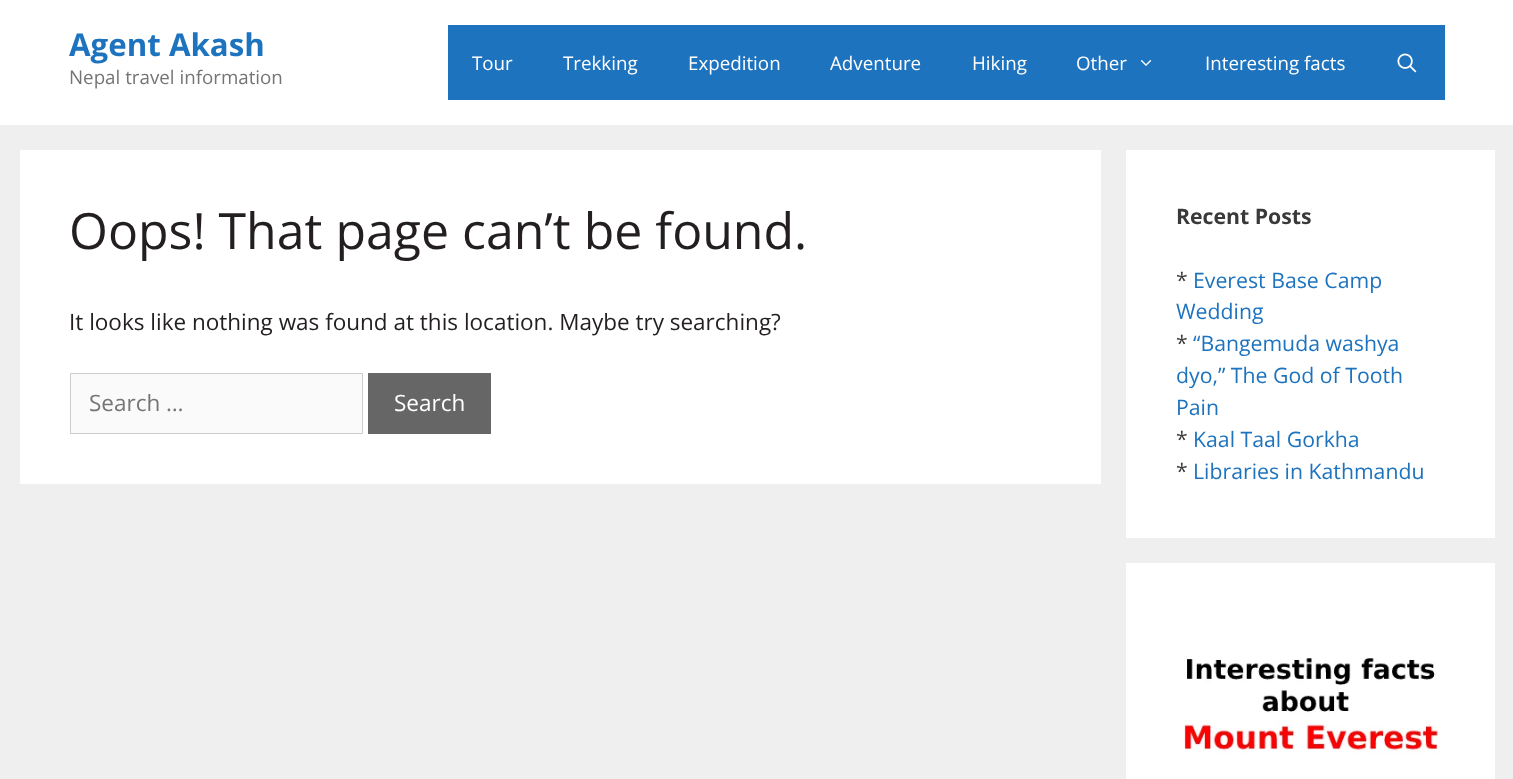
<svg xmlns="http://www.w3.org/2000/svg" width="1513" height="779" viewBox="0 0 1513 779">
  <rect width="100%" height="100%" fill="#efefef"/>
  <path d="M0 0h1513v125H0z" fill="#fff"/>
  <path d="M448 25h997v75H448z" fill="#1e73be"/>
  <image x="1140" y="60" width="12" height="6" href="img/1.png"/>
  <image x="1397" y="53" width="20" height="20" href="img/2.png"/>
  <path d="M20 150h1081v334H20z" fill="#fff"/>
  <path d="M70.5 373.5h292v60H70.5z" fill="#fafafa" stroke="#ccc"/>
  <path d="M368 373h123v61H368z" fill="#666"/>
  <path d="M1126 150h369v388H1126z" fill="#fff"/>
  <path d="M1126 563h369v216H1126z" fill="#fff"/>
  <image x="1183" y="658" width="257" height="97" href="img/3.png"/>
  <text x="69" y="56" font-family="Open Sans" font-size="31.25" font-weight="bold" fill="#1e73be">Agent Akash</text>
  <text x="69" y="84" font-family="Open Sans" font-size="18.75" fill="#757575">Nepal travel information</text>
  <g font-family="Open Sans" font-size="18.75" fill="#fff">
    <text x="472" y="70">Tour</text>
    <text x="563" y="70">Trekking</text>
    <text x="688" y="70">Expedition</text>
    <text x="830" y="70">Adventure</text>
    <text x="972" y="70">Hiking</text>
    <text x="1076" y="70">Other</text>
    <text x="1205" y="70">Interesting facts</text>
  </g>
  <text x="69" y="249" font-family="Open Sans" font-size="50" fill="#231f20">Oops! That page can’t be found.</text>
  <text x="69" y="330" font-family="Open Sans" font-size="22.5" fill="#231f20">It looks like nothing was found at this location. Maybe try searching?</text>
  <text x="89" y="411" font-family="Open Sans" font-size="22.5" fill="#757575">Search …</text>
  <text x="394" y="411" font-family="Open Sans" font-size="22.5" fill="#fff">Search</text>
  <text x="1176" y="224" font-family="Open Sans" font-size="21.25" font-weight="bold" fill="#3a3a3a">Recent Posts</text>
  <text x="1176" y="288" font-family="Open Sans" font-size="21.25" fill="#3a3a3a">*</text>
  <g font-family="Open Sans" font-size="21.25" fill="#1e73be">
    <text x="1193" y="288">Everest Base Camp</text>
    <text x="1176" y="319">Wedding</text>
  </g>
  <text x="1176" y="351" font-family="Open Sans" font-size="21.25" fill="#3a3a3a">*</text>
  <g font-family="Open Sans" font-size="21.25" fill="#1e73be">
    <text x="1193" y="351">“Bangemuda washya</text>
    <text x="1176" y="383">dyo,” The God of Tooth</text>
    <text x="1176" y="415">Pain</text>
  </g>
  <text x="1176" y="447" font-family="Open Sans" font-size="21.25" fill="#3a3a3a">*</text>
  <text x="1193" y="447" font-family="Open Sans" font-size="21.25" fill="#1e73be">Kaal Taal Gorkha</text>
  <text x="1176" y="479" font-family="Open Sans" font-size="21.25" fill="#3a3a3a">*</text>
  <text x="1193" y="479" font-family="Open Sans" font-size="21.25" fill="#1e73be">Libraries in Kathmandu</text>
</svg>
